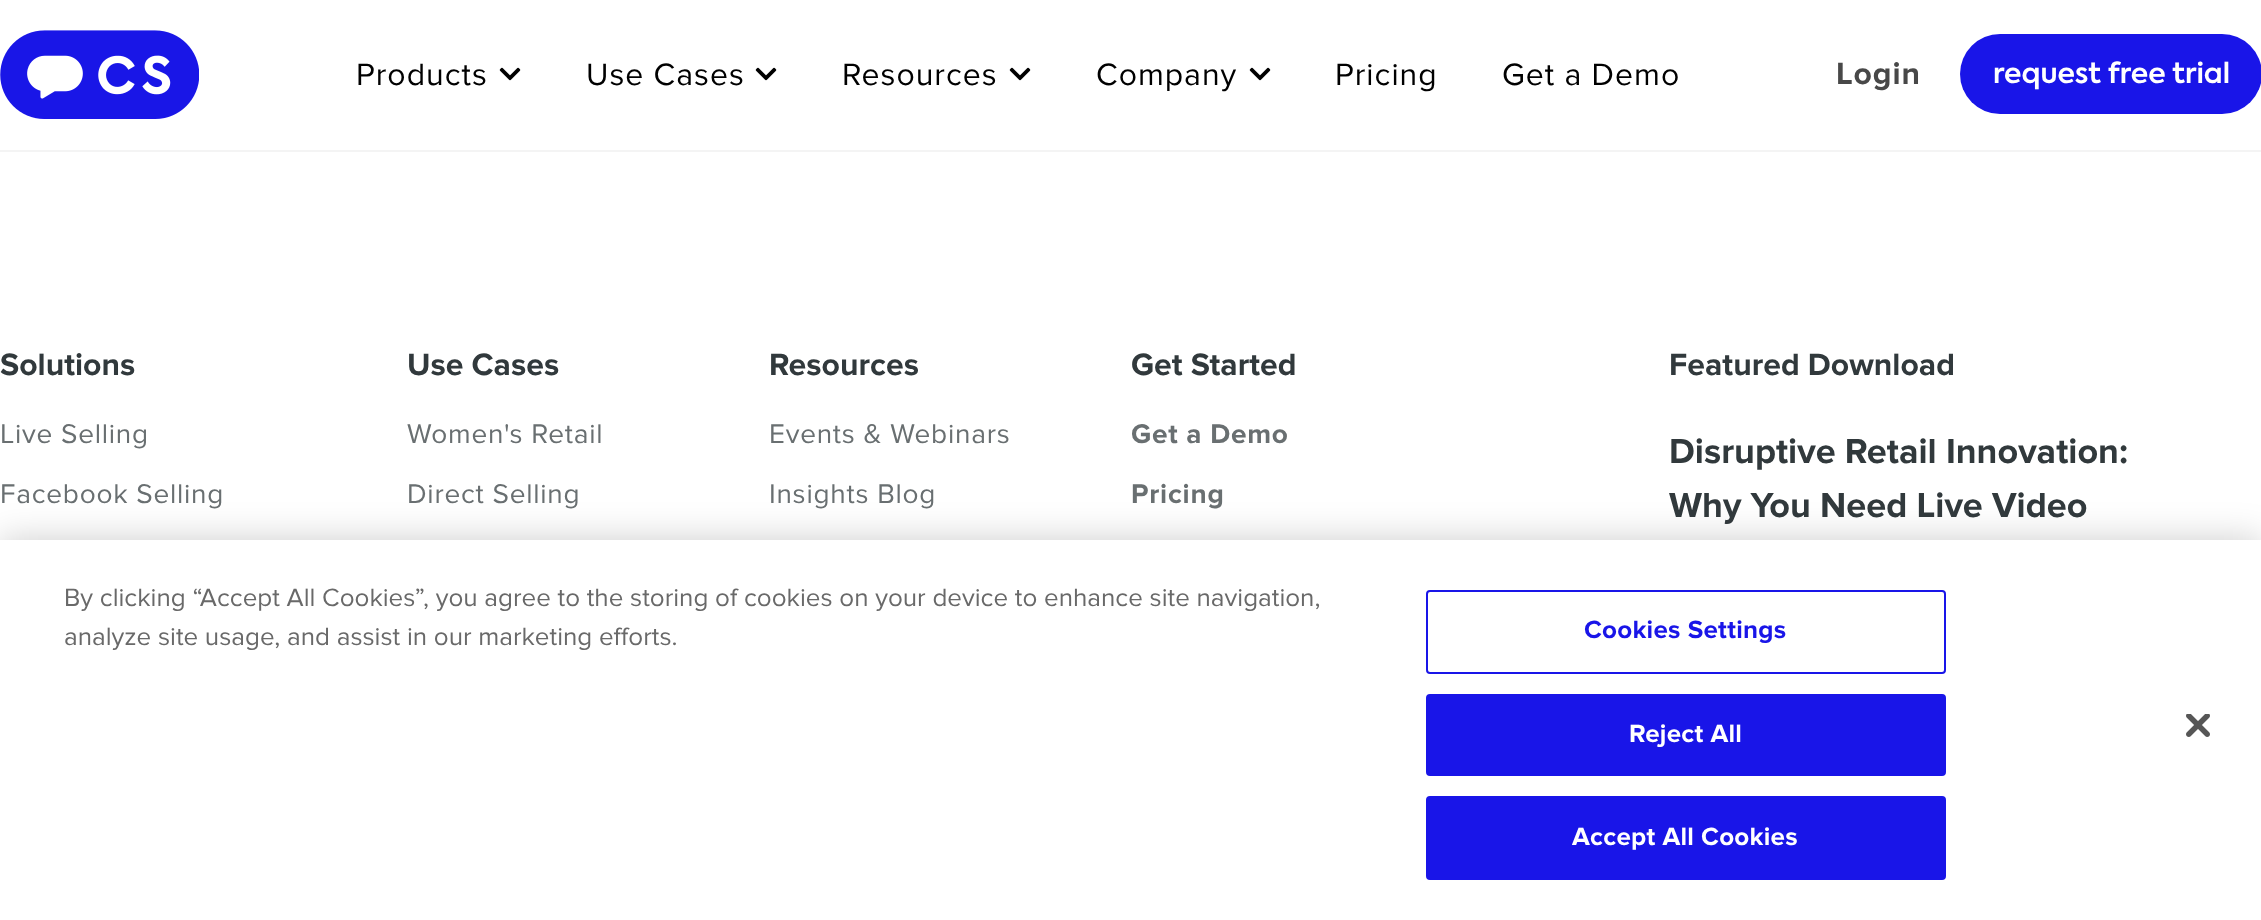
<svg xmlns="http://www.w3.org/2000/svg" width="2261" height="920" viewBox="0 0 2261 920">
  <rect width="100%" height="100%" fill="#fff"/>
  <path d="M0 150h2261v2H0z" fill="#f4f4f4"/>
  <image x="0" y="30" width="199" height="89" href="img/1.png"/>
  <image x="499" y="67" width="22" height="14" href="img/2.png"/>
  <image x="755" y="67" width="22" height="14" href="img/2.png"/>
  <image x="1009" y="67" width="22" height="14" href="img/2.png"/>
  <image x="1249" y="67" width="22" height="14" href="img/2.png"/>
  <rect x="1960" y="34" width="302" height="80" rx="40" fill="#1915e8"/>
  <path d="M0 540h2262v380H0z" fill="#00000033" filter="blur(18px)"/>
  <path d="M0 540h2261v380H0z" fill="#fff"/>
  <rect x="1427" y="591" width="518" height="82" rx="3" fill="none" stroke="#1915e8" stroke-width="2"/>
  <rect x="1427" y="695" width="518" height="80" rx="3" fill="#1915e8" stroke="#1915e8" stroke-width="2"/>
  <rect x="1427" y="797" width="518" height="82" rx="3" fill="#1915e8" stroke="#1915e8" stroke-width="2"/>
  <image x="2186" y="714" width="24" height="23" href="img/3.png"/>
  <g font-family="Proxima Nova" font-size="32" letter-spacing="1" fill="#000">
    <text x="356" y="85">Products</text>
    <text x="586" y="85">Use Cases</text>
    <text x="842" y="85">Resources</text>
    <text x="1096" y="85">Company</text>
    <text x="1335" y="85">Pricing</text>
    <text x="1502" y="85">Get a Demo</text>
  </g>
  <text x="1836" y="84" font-family="Proxima Nova" font-size="32" font-weight="bold" letter-spacing="1" fill="#484848">Login</text>
  <text x="1993" y="83" font-family="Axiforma" font-size="28" font-weight="600" fill="#fff">request free trial</text>
  <text x="0" y="375" font-family="Proxima Nova" font-size="32" font-weight="bold" fill="#31393c">Solutions</text>
  <g font-family="Proxima Nova" font-size="28" letter-spacing="0.75" fill="#696f71">
    <text x="0" y="443">Live Selling</text>
    <text x="0" y="503">Facebook Selling</text>
  </g>
  <text x="407" y="375" font-family="Proxima Nova" font-size="32" font-weight="bold" fill="#31393c">Use Cases</text>
  <g font-family="Proxima Nova" font-size="28" letter-spacing="0.75" fill="#696f71">
    <text x="407" y="443">Women's Retail</text>
    <text x="407" y="503">Direct Selling</text>
  </g>
  <text x="769" y="375" font-family="Proxima Nova" font-size="32" font-weight="bold" fill="#31393c">Resources</text>
  <g font-family="Proxima Nova" font-size="28" letter-spacing="0.75" fill="#696f71">
    <text x="769" y="443">Events &amp; Webinars</text>
    <text x="769" y="503">Insights Blog</text>
  </g>
  <text x="1131" y="375" font-family="Proxima Nova" font-size="32" font-weight="bold" fill="#31393c">Get Started</text>
  <g font-family="Proxima Nova" font-size="28" font-weight="bold" letter-spacing="0.75" fill="#696f71">
    <text x="1131" y="443">Get a Demo</text>
    <text x="1131" y="503">Pricing</text>
  </g>
  <text x="1669" y="375" font-family="Proxima Nova" font-size="32" font-weight="bold" fill="#31393c">Featured Download</text>
  <g font-family="Proxima Nova" font-size="36" font-weight="bold" fill="#31393c">
    <text x="1669" y="463">Disruptive Retail Innovation:</text>
    <text x="1669" y="517">Why You Need Live Video</text>
  </g>
  <g font-family="Proxima Nova" font-size="26" fill="#696969">
    <text x="64" y="606">By clicking “Accept All Cookies”, you agree to the storing of cookies on your device to enhance site navigation,</text>
    <text x="64" y="645">analyze site usage, and assist in our marketing efforts.</text>
  </g>
  <text x="1584" y="638" font-family="Proxima Nova" font-size="26" font-weight="bold" letter-spacing="0.25" fill="#1915e8">Cookies Settings</text>
  <g font-family="Proxima Nova" font-size="26" font-weight="bold" letter-spacing="0.25" fill="#fff">
    <text x="1629" y="742">Reject All</text>
    <text x="1572" y="845">Accept All Cookies</text>
  </g>
</svg>
